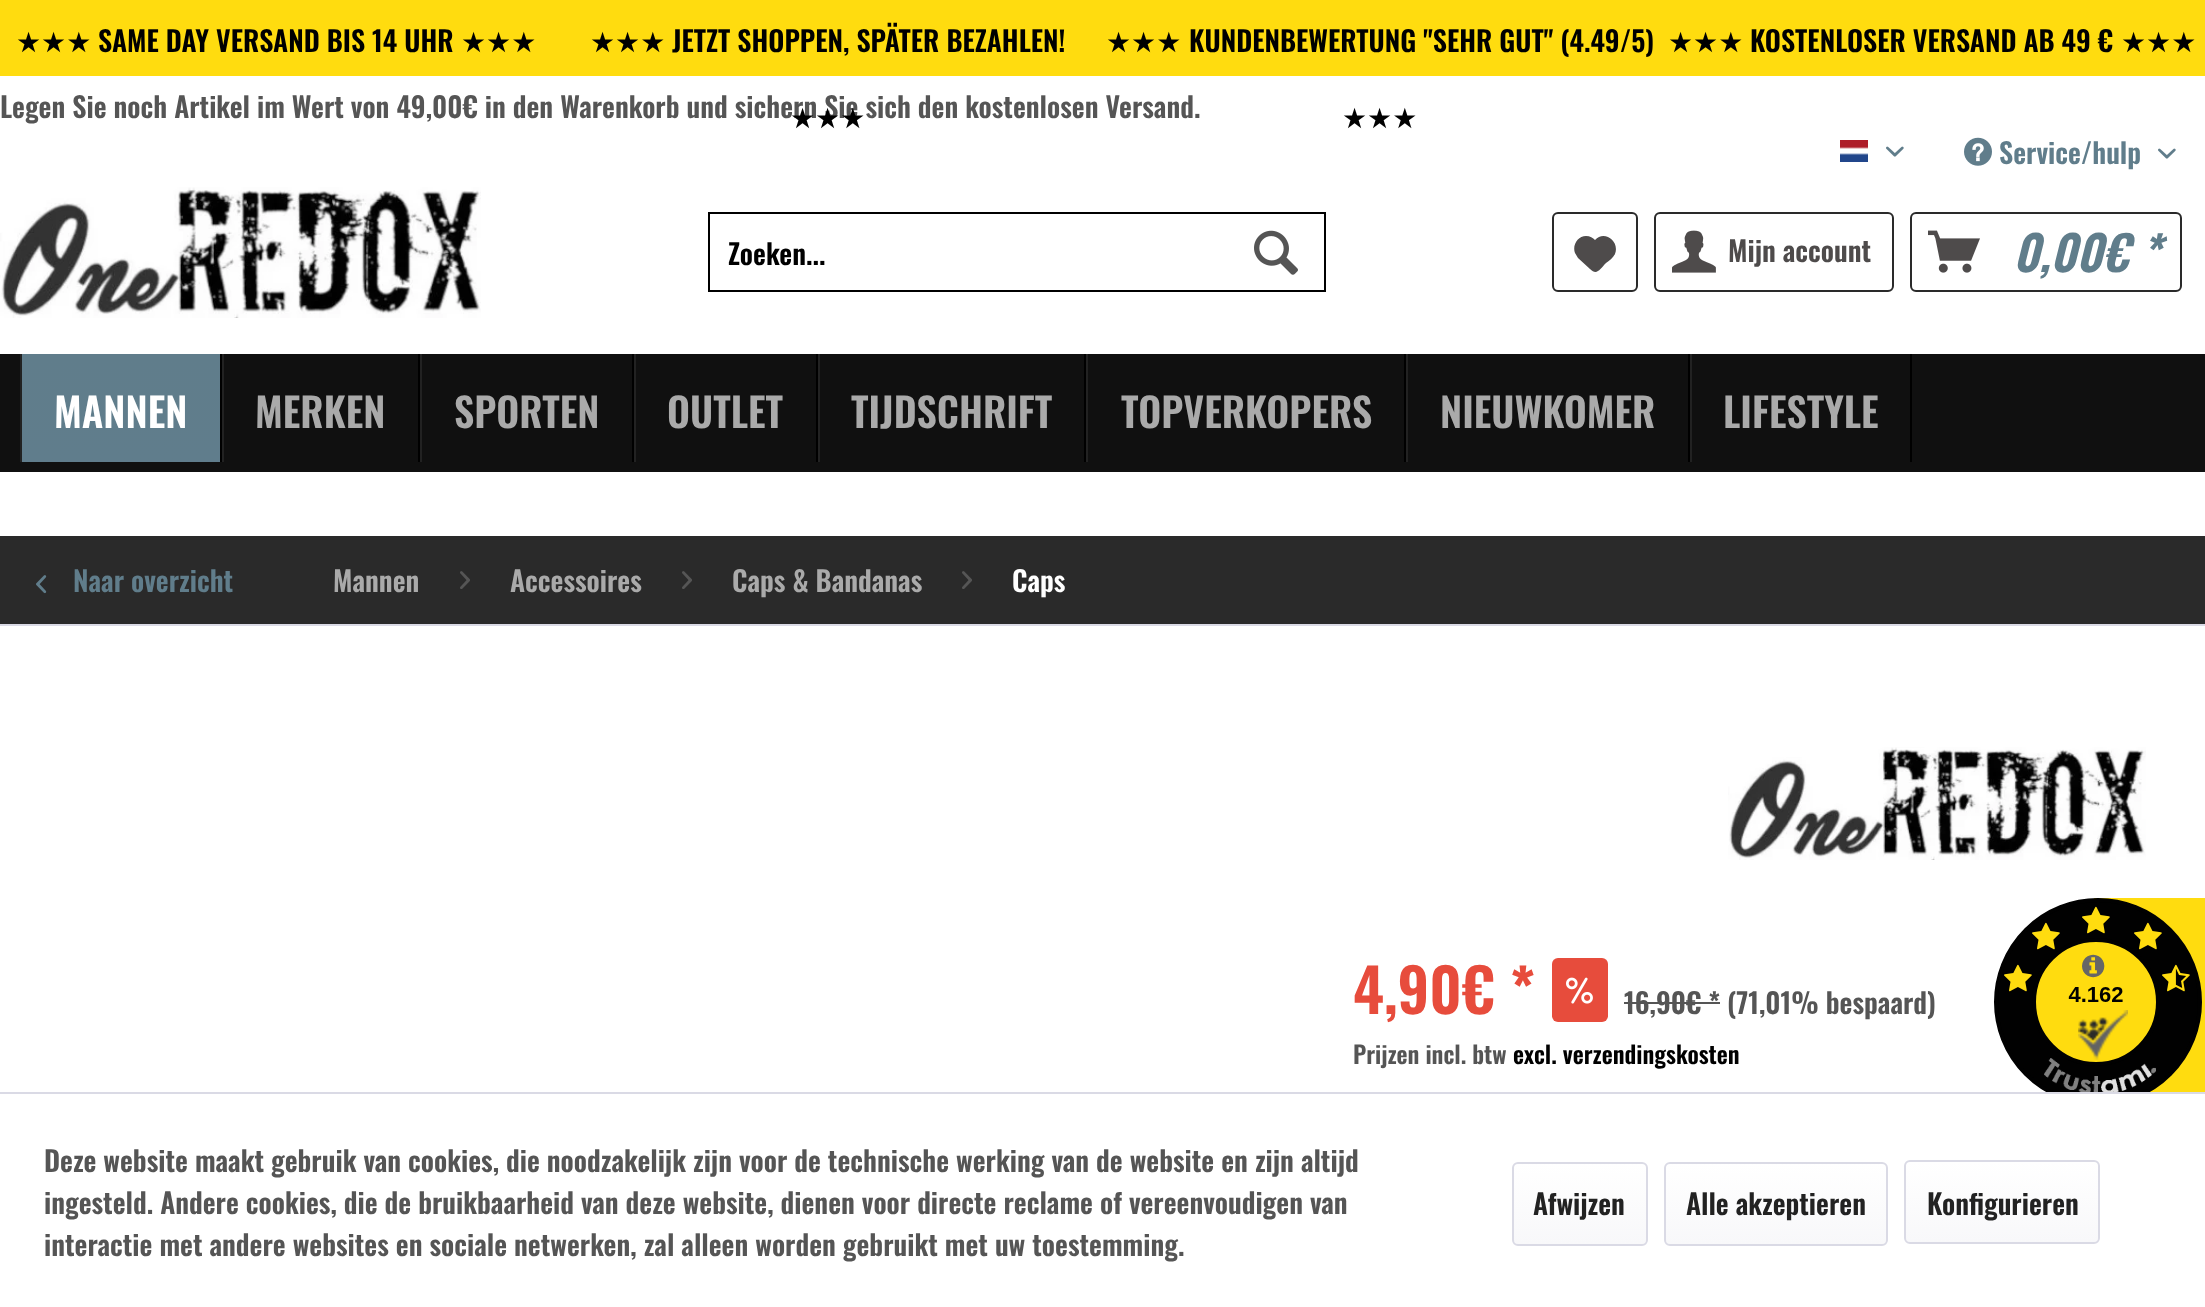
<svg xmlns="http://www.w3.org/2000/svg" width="2205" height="1307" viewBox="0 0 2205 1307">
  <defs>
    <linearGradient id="g1" gradientUnits="userSpaceOnUse" x1="121" y1="354" x2="121" y2="462"><stop offset="0" stop-color="#607d8b"/><stop offset="1" stop-color="#607d8c"/></linearGradient>
    <linearGradient id="g2" gradientUnits="userSpaceOnUse" x1="1580" y1="1164" x2="1580" y2="1244"><stop offset="0" stop-color="#fff"/><stop offset="1" stop-color="#f8f8fa"/></linearGradient>
    <linearGradient id="g3" gradientUnits="userSpaceOnUse" x1="1776" y1="1164" x2="1776" y2="1244"><stop offset="0" stop-color="#fff"/><stop offset="1" stop-color="#f8f8fa"/></linearGradient>
    <linearGradient id="g4" gradientUnits="userSpaceOnUse" x1="2002" y1="1162" x2="2002" y2="1242"><stop offset="0" stop-color="#fff"/><stop offset="1" stop-color="#f8f8fa"/></linearGradient>
  </defs>
  <rect width="100%" height="100%" fill="#fff"/>
  <path d="M0 0h2205v76H0z" fill="#ffdc0f"/>
  <image x="1840" y="140" width="28" height="22" href="img/1.png"/>
  <image x="1886" y="146" width="18" height="11" href="img/2.png"/>
  <image x="1964" y="137" width="28" height="29" href="img/3.png"/>
  <image x="2158" y="148" width="18" height="11" href="img/2.png"/>
  <image x="0" y="187" width="481" height="131" href="img/4.png"/>
  <path d="M709 213h616v78H709z" fill="none" stroke="#000" stroke-width="2"/>
  <image x="1254" y="230" width="44" height="45" href="img/5.png"/>
  <rect x="1553" y="213" width="84" height="78" rx="5" fill="none" stroke="#2a2a2a" stroke-width="2"/>
  <path d="M1586 236C1578 236 1572 245 1575 253L1578 258L1590 269C1597 276 1600 269 1606 263C1609 261 1613 258 1615 254C1620 241 1604 230 1595 240C1593 238 1590 236 1586 236Z" fill="#4e4b4b"/>
  <rect x="1655" y="213" width="238" height="78" rx="5" fill="none" stroke="#2a2a2a" stroke-width="2"/>
  <image x="1672" y="230" width="44" height="43" href="img/6.png"/>
  <rect x="1911" y="213" width="270" height="78" rx="5" fill="none" stroke="#2a2a2a" stroke-width="2"/>
  <image x="1928" y="230" width="52" height="43" href="img/7.png"/>
  <path d="M0 354h2205v118H0z" fill="#101010"/>
  <path d="M22 354h198v108H22z" fill="url(#g1)"/>
  <path d="M220 354h2v108H220z" fill="#000"/>
  <path d="M20 354h2v108H20z" fill="#222"/>
  <path d="M418 354h2v108H418z" fill="#000"/>
  <path d="M222 354h2v108H222z" fill="#222"/>
  <path d="M632 354h2v108H632z" fill="#000"/>
  <path d="M420 354h2v108H420z" fill="#222"/>
  <path d="M816 354h2v108H816z" fill="#000"/>
  <path d="M634 354h2v108H634z" fill="#222"/>
  <path d="M1084 354h2v108H1084z" fill="#000"/>
  <path d="M818 354h2v108H818z" fill="#222"/>
  <path d="M1404 354h2v108H1404z" fill="#000"/>
  <path d="M1086 354h2v108H1086z" fill="#222"/>
  <path d="M1688 354h2v108H1688z" fill="#000"/>
  <path d="M1406 354h2v108H1406z" fill="#222"/>
  <path d="M1910 354h2v108H1910z" fill="#000"/>
  <path d="M1690 354h2v108H1690z" fill="#222"/>
  <path d="M0 536h2205v88H0z" fill="#2a2a2a"/>
  <path d="M0 624h2205v2H0z" fill="#dadae5"/>
  <image x="36" y="575" width="11" height="19" href="img/8.png"/>
  <image x="460" y="571" width="10" height="18" href="img/9.png"/>
  <image x="682" y="571" width="10" height="18" href="img/9.png"/>
  <image x="962" y="571" width="10" height="18" href="img/9.png"/>
  <image x="1728" y="747" width="418" height="113" href="img/10.png"/>
  <rect x="1552" y="958" width="56" height="64" rx="6" fill="#e74c3c"/>
  <image x="1566" y="977" width="27" height="27" href="img/11.png"/>
  <path d="M1624 1002h96v2H1624z" fill="#555"/>
  <image x="1994" y="898" width="211" height="194" href="img/12.png"/>
  <path d="M0 1092h2205v2H0z" fill="#dadae5"/>
  <rect x="1514" y="1164" width="132" height="80" rx="4" fill="url(#g2)"/>
  <rect x="1513" y="1163" width="134" height="82" rx="5" fill="none" stroke="#dadae5" stroke-width="2"/>
  <rect x="1666" y="1164" width="220" height="80" rx="4" fill="url(#g3)"/>
  <rect x="1665" y="1163" width="222" height="82" rx="5" fill="none" stroke="#dadae5" stroke-width="2"/>
  <rect x="1906" y="1162" width="192" height="80" rx="4" fill="url(#g4)"/>
  <rect x="1905" y="1161" width="194" height="82" rx="5" fill="none" stroke="#dadae5" stroke-width="2"/>
  <text x="16" y="52" font-family="DejaVu Sans" font-size="28" fill="#000">★★★</text>
  <text x="98" y="52" font-family="Oswald" font-size="28" font-weight="600" fill="#000">SAME DAY VERSAND BIS 14 UHR</text>
  <g font-family="DejaVu Sans" font-size="28" fill="#000">
    <text x="461" y="52">★★★</text>
    <text x="590" y="52">★★★</text>
  </g>
  <text x="672" y="52" font-family="Oswald" font-size="28" font-weight="600" fill="#000">JETZT SHOPPEN, SPÄTER BEZAHLEN!</text>
  <text x="1106" y="52" font-family="DejaVu Sans" font-size="28" fill="#000">★★★</text>
  <text x="1189" y="52" font-family="Oswald" font-size="28" font-weight="600" fill="#000">KUNDENBEWERTUNG "SEHR GUT" (4.49/5)</text>
  <g font-family="DejaVu Sans" font-size="28" fill="#000">
    <text x="1342" y="128">★★★</text>
    <text x="1668" y="52">★★★</text>
  </g>
  <text x="1750" y="52" font-family="Oswald" font-size="28" font-weight="600" fill="#000">KOSTENLOSER VERSAND AB 49 €</text>
  <text x="2121" y="52" font-family="DejaVu Sans" font-size="28" fill="#000">★★★</text>
  <text x="0" y="118" font-family="Oswald" font-size="28" font-weight="600" fill="#555">Legen Sie noch Artikel im Wert von 49,00€ in den Warenkorb und sichern Sie sich den kostenlosen Versand.</text>
  <text x="790" y="128" font-family="DejaVu Sans" font-size="28" fill="#000">★★★</text>
  <text x="1999" y="164" font-family="Oswald" font-size="28" font-weight="600" fill="#607d8b">Service/hulp</text>
  <text x="728" y="265" font-family="Oswald" font-size="28" font-weight="600" fill="#000">Zoeken...</text>
  <text x="1728" y="262" font-family="Oswald" font-size="28" font-weight="600" fill="#4e4b4b">Mijn account</text>
  <text x="2013" y="272" font-family="Oswald" font-size="48" font-weight="600" font-style="italic" fill="#607d8b">0,00€ *</text>
  <text x="54" y="428" font-family="Oswald" font-size="40" font-weight="600" fill="#fff">MANNEN</text>
  <g font-family="Oswald" font-size="40" font-weight="600" fill="#aaa">
    <text x="255" y="428">MERKEN</text>
    <text x="454" y="428">SPORTEN</text>
    <text x="667" y="428">OUTLET</text>
    <text x="851" y="428">TIJDSCHRIFT</text>
    <text x="1121" y="428">TOPVERKOPERS</text>
    <text x="1440" y="428">NIEUWKOMER</text>
    <text x="1723" y="428">LIFESTYLE</text>
  </g>
  <text x="73" y="592" font-family="Oswald" font-size="28" font-weight="600" fill="#607d8b">Naar overzicht</text>
  <g font-family="Oswald" font-size="28" font-weight="600" fill="#aaa">
    <text x="333" y="592">Mannen</text>
    <text x="510" y="592">Accessoires</text>
    <text x="732" y="592">Caps &amp; Bandanas</text>
  </g>
  <text x="1012" y="592" font-family="Oswald" font-size="28" font-weight="600" fill="#fff">Caps</text>
  <text x="1353" y="1014" font-family="Oswald" font-size="60" font-weight="600" fill="#e74c3c">4,90€ *</text>
  <text x="1624" y="1014" font-family="Oswald" font-size="28" font-weight="600" fill="#555">16,90€ * (71,01% bespaard)</text>
  <text x="1353" y="1064" font-family="Oswald" font-size="24" font-weight="600" fill="#555">Prijzen incl. btw</text>
  <text x="1513" y="1064" font-family="Oswald" font-size="24" font-weight="600" fill="#000">excl. verzendingskosten</text>
  <g font-family="Oswald" font-size="28" font-weight="600" fill="#555">
    <text x="44" y="1172">Deze website maakt gebruik van cookies, die noodzakelijk zijn voor de technische werking van de website en zijn altijd</text>
    <text x="44" y="1214">ingesteld. Andere cookies, die de bruikbaarheid van deze website, dienen voor directe reclame of vereenvoudigen van</text>
    <text x="44" y="1256">interactie met andere websites en sociale netwerken, zal alleen worden gebruikt met uw toestemming.</text>
  </g>
  <g font-family="Oswald" font-size="28" font-weight="600" fill="#222">
    <text x="1533" y="1215">Afwijzen</text>
    <text x="1686" y="1215">Alle akzeptieren</text>
    <text x="1927" y="1215">Konfigurieren</text>
  </g>
</svg>
